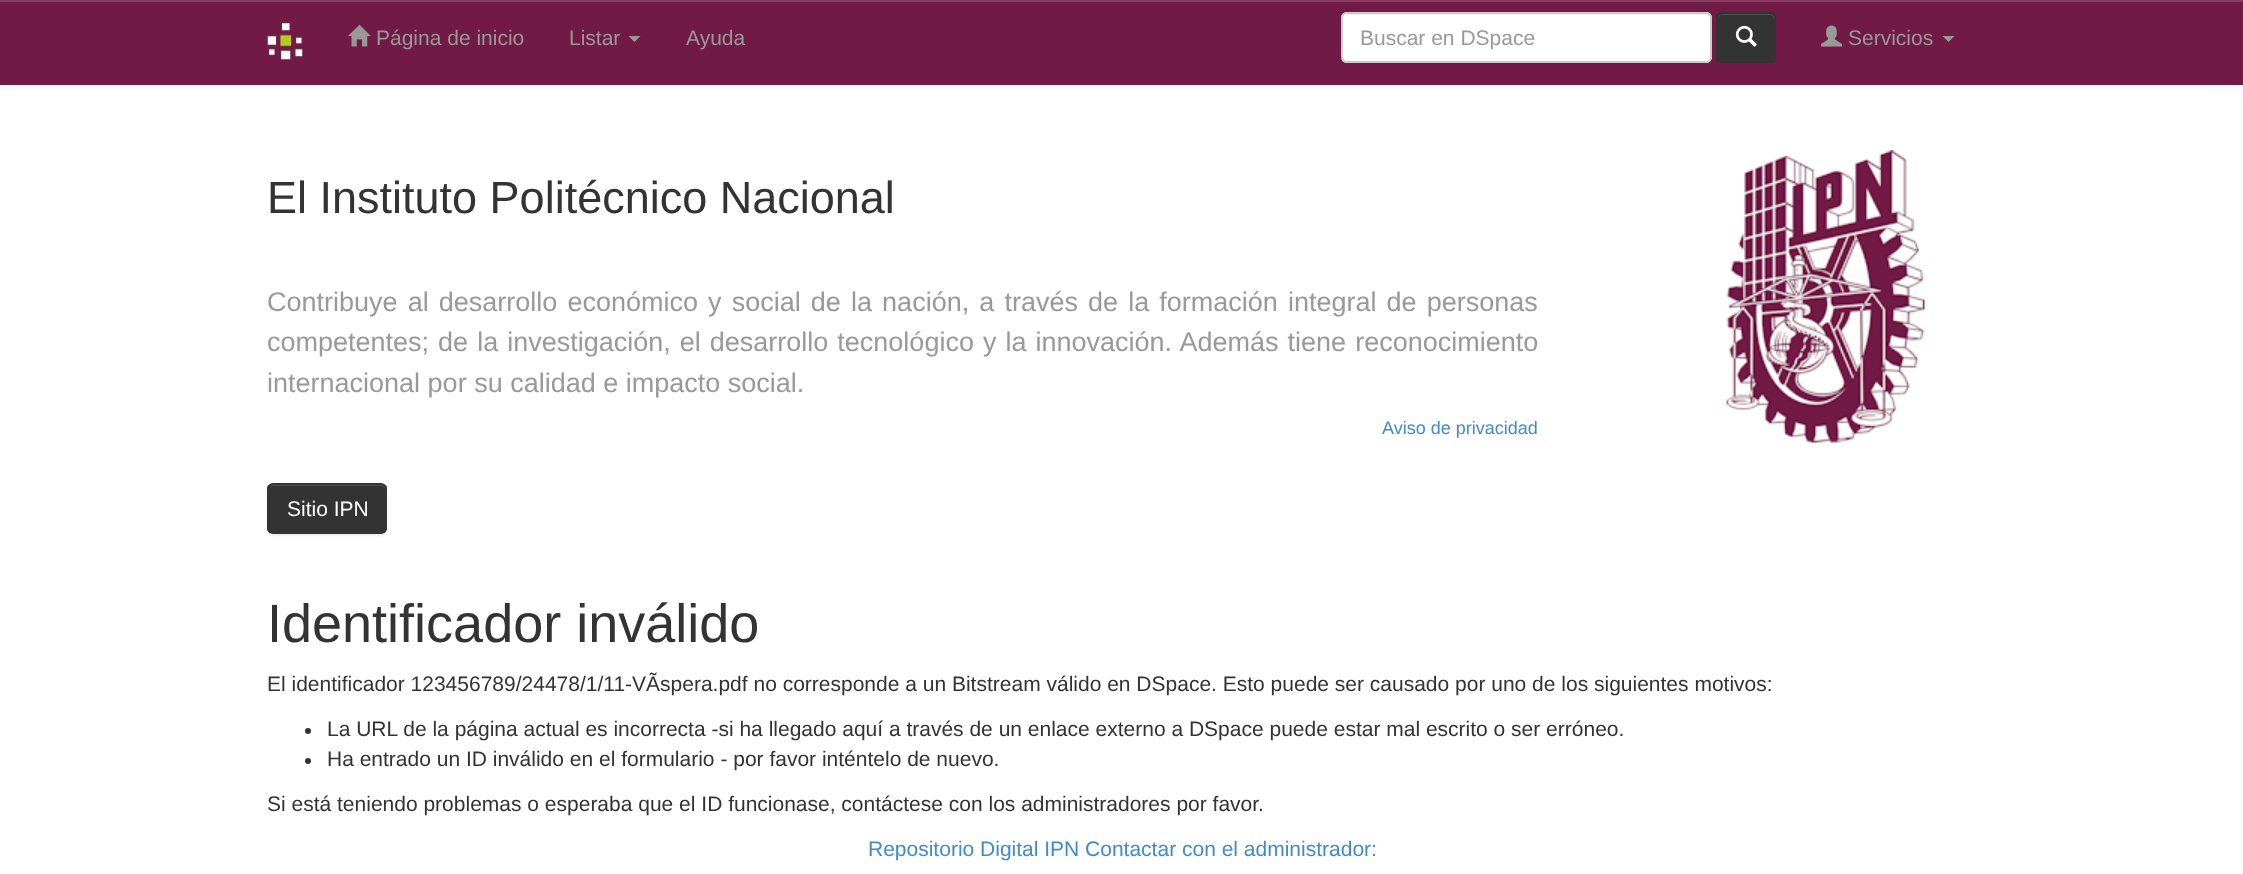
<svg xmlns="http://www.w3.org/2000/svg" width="2243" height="874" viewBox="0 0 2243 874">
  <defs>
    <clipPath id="clip1"><rect x="1716" y="12" width="60" height="51" rx="6"/></clipPath>
    <clipPath id="clip2"><rect x="267" y="483" width="120" height="51" rx="6"/></clipPath>
  </defs>
  <rect width="100%" height="100%" fill="#fff"/>
  <path d="M0 2h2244v84H0z" fill="#00000012" filter="blur(4px)"/>
  <path d="M0 2h2243v83H0z" fill="#711a45"/>
  <path d="M0 0h2243v2H0z" fill="#863c61"/>
  <image x="267" y="22" width="36" height="38" href="img/1.png"/>
  <image x="348" y="24" width="23" height="23" href="img/2.png"/>
  <path d="M628.5 36H640.5L634.5 42Z" fill="#999"/>
  <rect x="1341" y="12" width="371" height="51" rx="6" fill="#fff"/>
  <path d="M1347 15H1706C1708 15 1710 17 1710 20V19C1710 16 1708 14 1705 14H1348C1346 14 1345 15 1344 16Z" fill="#ececec"/>
  <rect x="1342" y="13" width="369" height="49" rx="5" fill="none" stroke="#ccc" stroke-width="2"/>
  <g clip-path="url(#clip1)">
    <path d="M1716 14h60v48H1716z" fill="#323332"/>
  </g>
  <path d="M1722 15H1770C1772 15 1774 17 1774 20V58L1773 61C1776 58 1775 54 1775 51V38C1775 12 1780 14 1754 14H1731C1725 14 1718 12 1718 20C1718 17 1720 15 1722 15Z" fill="#515251"/>
  <rect x="1717" y="13" width="58" height="49" rx="5" fill="none" stroke="#323332" stroke-width="2"/>
  <image x="1735" y="25" width="22" height="22" href="img/3.png"/>
  <image x="1821" y="25" width="21" height="22" href="img/4.png"/>
  <path d="M1942.5 36H1954.5L1948.5 42Z" fill="#999"/>
  <rect x="267" y="485" width="120" height="51" rx="6" fill="#00000012" filter="blur(1px)"/>
  <g clip-path="url(#clip2)">
    <path d="M267 485h120v48H267z" fill="#323332"/>
  </g>
  <path d="M273 486H381C383 486 386 488 386 490C386 487 384 485 381 485H274C272 485 271 486 270 487Z" fill="#515251"/>
  <rect x="268" y="484" width="118" height="49" rx="5" fill="none" stroke="#323332" stroke-width="2"/>
  <image x="1726" y="150" width="199" height="293" href="img/5.png"/>
  <circle cx="308" cy="731" r="3" fill="#333"/>
  <circle cx="308" cy="761" r="3" fill="#333"/>
  <g font-family="Liberation Sans" font-size="21" fill="#999">
    <text x="376" y="45">Página de inicio</text>
    <text x="569" y="45">Listar</text>
    <text x="686" y="45">Ayuda</text>
    <text x="1360" y="45">Buscar en DSpace</text>
    <text x="1848" y="45">Servicios</text>
  </g>
  <text x="267" y="213" font-family="Liberation Sans" font-size="45" fill="#333">El Instituto Politécnico Nacional</text>
  <g font-family="Liberation Sans" font-size="27" fill="#999">
    <text x="267" y="311" word-spacing="2.6">Contribuye al desarrollo económico y social de la nación, a través de la formación integral de personas</text>
    <text x="267" y="351" word-spacing="1.5">competentes; de la investigación, el desarrollo tecnológico y la innovación. Además tiene reconocimiento</text>
    <text x="267" y="392">internacional por su calidad e impacto social.</text>
  </g>
  <text x="1382" y="434" font-family="Liberation Sans" font-size="18" fill="#428bca">Aviso de privacidad</text>
  <text x="287" y="516" font-family="Liberation Sans" font-size="21" fill="#fff">Sitio IPN</text>
  <text x="267" y="642" font-family="Liberation Sans" font-size="54" fill="#333">Identificador inválido</text>
  <g font-family="Liberation Sans" font-size="21" fill="#333">
    <text x="267" y="691">El identificador 123456789/24478/1/11-VÃspera.pdf no corresponde a un Bitstream válido en DSpace. Esto puede ser causado por uno de los siguientes motivos:</text>
    <text x="327" y="736">La URL de la página actual es incorrecta -si ha llegado aquí a través de un enlace externo a DSpace puede estar mal escrito o ser erróneo.</text>
    <text x="327" y="766">Ha entrado un ID inválido en el formulario - por favor inténtelo de nuevo.</text>
    <text x="267" y="811">Si está teniendo problemas o esperaba que el ID funcionase, contáctese con los administradores por favor.</text>
  </g>
  <text x="868" y="856" font-family="Liberation Sans" font-size="21" fill="#428bca">Repositorio Digital IPN Contactar con el administrador:</text>
</svg>
